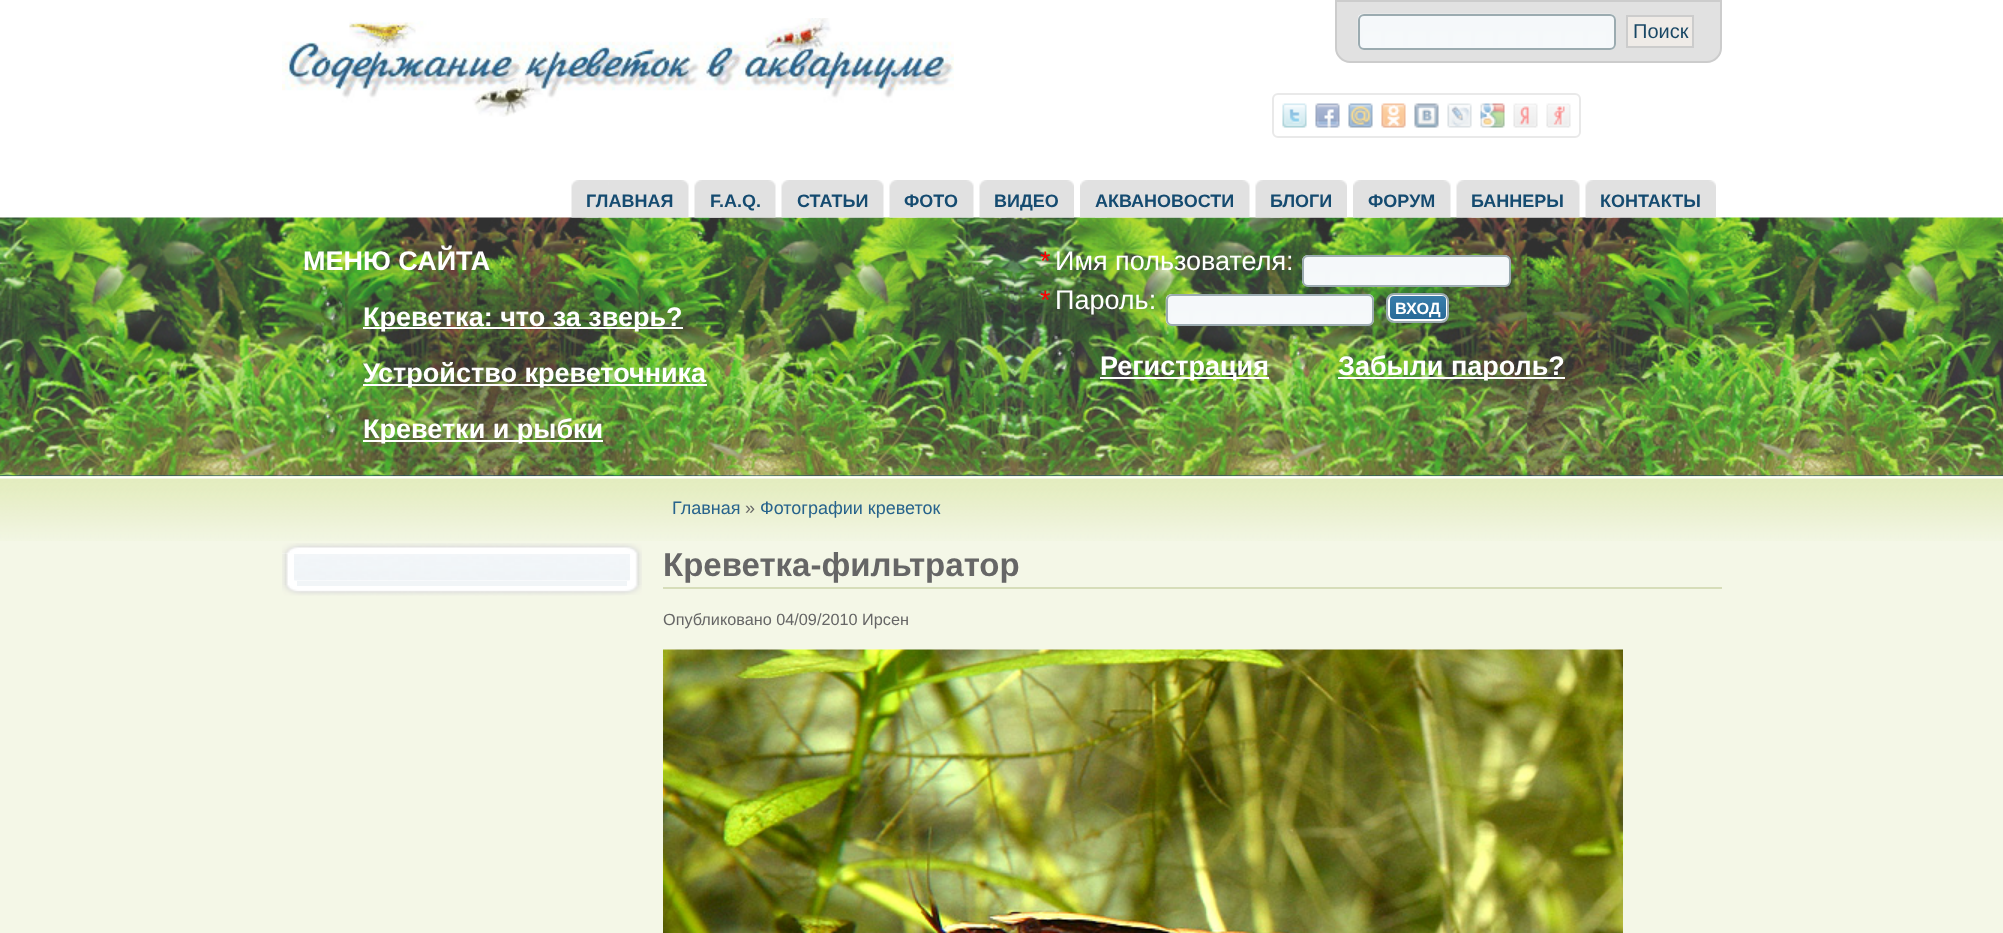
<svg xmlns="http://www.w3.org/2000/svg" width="2003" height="933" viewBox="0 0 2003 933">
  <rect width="100%" height="100%" fill="#fff"/>
  <image x="282" y="18" width="672" height="99" href="img/1.png"/>
  <path d="M1336 1H1721V48C1721 55.5 1714.5 62 1707 62H1350C1342.5 62 1336 55.5 1336 48Z" fill="#e1e1e1" stroke="#ccc" stroke-width="2"/>
  <rect x="1358" y="14" width="258" height="36" rx="6" fill="#f6f9fb"/>
  <image x="1357" y="13" width="258" height="34" href="img/2.png"/>
  <rect x="1359" y="15" width="256" height="34" rx="5" fill="none" stroke="#9babb0" stroke-width="2"/>
  <path d="M1627 16h66v31H1627z" fill="#efebe7" stroke="#ccc" stroke-width="2"/>
  <rect x="1273" y="94" width="307" height="43" rx="5" fill="none" stroke="#e9e9e9" stroke-width="2"/>
  <image x="1282" y="103" width="25" height="25" href="img/3.png"/>
  <image x="1315" y="103" width="25" height="25" href="img/4.png"/>
  <image x="1348" y="103" width="25" height="25" href="img/5.png"/>
  <image x="1381" y="103" width="25" height="25" href="img/6.png"/>
  <image x="1414" y="103" width="25" height="25" href="img/7.png"/>
  <image x="1447" y="103" width="25" height="25" href="img/8.png"/>
  <image x="1480" y="103" width="25" height="25" href="img/9.png"/>
  <image x="1513" y="103" width="25" height="25" href="img/10.png"/>
  <image x="1546" y="103" width="25" height="25" href="img/11.png"/>
  <path d="M0 475h2003v1H0z" fill="#144a6e"/>
  <image x="0" y="217" width="2003" height="259" href="img/32.png"/>
  <image x="571" y="180" width="28" height="38" href="img/12.png"/>
  <image x="586" y="180" width="103" height="38" href="img/13.png"/>
  <image x="694" y="180" width="28" height="38" href="img/14.png"/>
  <image x="709" y="180" width="67" height="38" href="img/15.png"/>
  <image x="781" y="180" width="28" height="38" href="img/16.png"/>
  <image x="796" y="180" width="88" height="38" href="img/17.png"/>
  <image x="889" y="180" width="28" height="38" href="img/18.png"/>
  <image x="904" y="180" width="70" height="38" href="img/19.png"/>
  <image x="979" y="180" width="28" height="38" href="img/20.png"/>
  <image x="994" y="180" width="80" height="38" href="img/21.png"/>
  <image x="1080" y="180" width="27" height="38" href="img/22.png"/>
  <image x="1095" y="180" width="155" height="38" href="img/23.png"/>
  <image x="1255" y="180" width="28" height="38" href="img/24.png"/>
  <image x="1270" y="180" width="77" height="38" href="img/25.png"/>
  <image x="1353" y="180" width="27" height="38" href="img/26.png"/>
  <image x="1368" y="180" width="83" height="38" href="img/27.png"/>
  <image x="1456" y="180" width="28" height="38" href="img/28.png"/>
  <image x="1471" y="180" width="109" height="38" href="img/29.png"/>
  <image x="1585" y="180" width="28" height="38" href="img/30.png"/>
  <image x="1600" y="180" width="116" height="38" href="img/31.png"/>
  <image x="319" y="283" width="25" height="43" href="img/33.png"/>
  <path d="M363 327h320v2H363z" fill="#fff"/>
  <image x="319" y="340" width="25" height="43" href="img/34.png"/>
  <path d="M363 384h344v2H363z" fill="#fff"/>
  <image x="319" y="395" width="25" height="43" href="img/35.png"/>
  <path d="M363 440h240v2H363z" fill="#fff"/>
  <image x="1302" y="255" width="209" height="32" href="img/36.png"/>
  <rect x="1303" y="256" width="207" height="30" rx="5" fill="none" stroke="#9babb0" stroke-width="2"/>
  <image x="1165" y="294" width="209" height="32" href="img/37.png"/>
  <rect x="1167" y="295" width="206" height="30" rx="5" fill="none" stroke="#9babb0" stroke-width="2"/>
  <image x="1389" y="294" width="58" height="27" href="img/38.png"/>
  <rect x="1389" y="295" width="58" height="25" rx="5" fill="none" stroke="#fff" stroke-width="2"/>
  <rect x="1387" y="294" width="61" height="28" rx="7" fill="none" stroke="#9babb0" stroke-width="2"/>
  <image x="1051" y="333" width="24" height="42" href="img/39.png"/>
  <path d="M1100 377h169v2H1100z" fill="#fff"/>
  <image x="1289" y="333" width="25" height="42" href="img/40.png"/>
  <path d="M1338 377h227v2H1338z" fill="#fff"/>
  <path d="M0 476h2003v457H0z" fill="#f4f7e7"/>
  <image x="0" y="477" width="2003" height="64" href="img/41.png"/>
  <image x="282" y="543" width="17" height="11" href="img/42.png"/>
  <image x="299" y="543" width="343" height="11" href="img/43.png"/>
  <image x="282" y="553" width="360" height="32" href="img/44.png"/>
  <image x="282" y="553" width="6" height="32" href="img/45.png"/>
  <image x="294" y="554" width="336" height="27" href="img/46.png"/>
  <image x="282" y="585" width="344" height="11" href="img/47.png"/>
  <image x="625" y="585" width="17" height="10" href="img/48.png"/>
  <path d="M297 581h330v5H297z" fill="#f1f5f7"/>
  <path d="M663 587h1059v2H663z" fill="#d6ddb9"/>
  <image x="663" y="649" width="960" height="284" href="img/49.png"/>
  <text x="1633" y="38" font-family="Liberation Sans" font-size="20" fill="#194765">Поиск</text>
  <g font-family="Liberation Sans" font-size="18" font-weight="bold" fill="#154b70">
    <text x="586" y="207">ГЛАВНАЯ</text>
    <text x="710" y="207">F.A.Q.</text>
    <text x="797" y="207">СТАТЬИ</text>
    <text x="904" y="207">ФОТО</text>
    <text x="994" y="207">ВИДЕО</text>
    <text x="1095" y="207">АКВАНОВОСТИ</text>
    <text x="1270" y="207">БЛОГИ</text>
    <text x="1368" y="207">ФОРУМ</text>
    <text x="1471" y="207">БАННЕРЫ</text>
    <text x="1600" y="207">КОНТАКТЫ</text>
  </g>
  <g font-family="Liberation Sans" font-size="27" font-weight="bold" fill="#fff">
    <text x="303" y="270">МЕНЮ САЙТА</text>
    <text x="363" y="326">Креветка: что за зверь?</text>
    <text x="363" y="382">Устройство креветочника</text>
    <text x="363" y="438">Креветки и рыбки</text>
  </g>
  <text x="1040" y="270" font-family="Liberation Sans" font-size="27" fill="#f00">*</text>
  <text x="1055" y="270" font-family="Liberation Sans" font-size="27" fill="#fff">Имя пользователя:</text>
  <text x="1040" y="309" font-family="Liberation Sans" font-size="27" fill="#f00">*</text>
  <text x="1055" y="309" font-family="Liberation Sans" font-size="27" fill="#fff">Пароль:</text>
  <text x="1395" y="314" font-family="Liberation Sans" font-size="16.25" font-weight="bold" fill="#fff">ВХОД</text>
  <g font-family="Liberation Sans" font-size="27" font-weight="bold" fill="#fff">
    <text x="1100" y="375">Регистрация</text>
    <text x="1338" y="375">Забыли пароль?</text>
  </g>
  <text x="672" y="514" font-family="Liberation Sans" font-size="18" fill="#27638c">Главная</text>
  <text x="745" y="514" font-family="Liberation Sans" font-size="18" fill="#666">»</text>
  <text x="760" y="514" font-family="Liberation Sans" font-size="18" fill="#27638c">Фотографии креветок</text>
  <text x="663" y="576" font-family="Liberation Sans" font-size="33" font-weight="bold" fill="#666">Креветка-фильтратор</text>
  <text x="663" y="625" font-family="Liberation Sans" font-size="16.25" fill="#666">Опубликовано 04/09/2010 Ирсен</text>
</svg>
